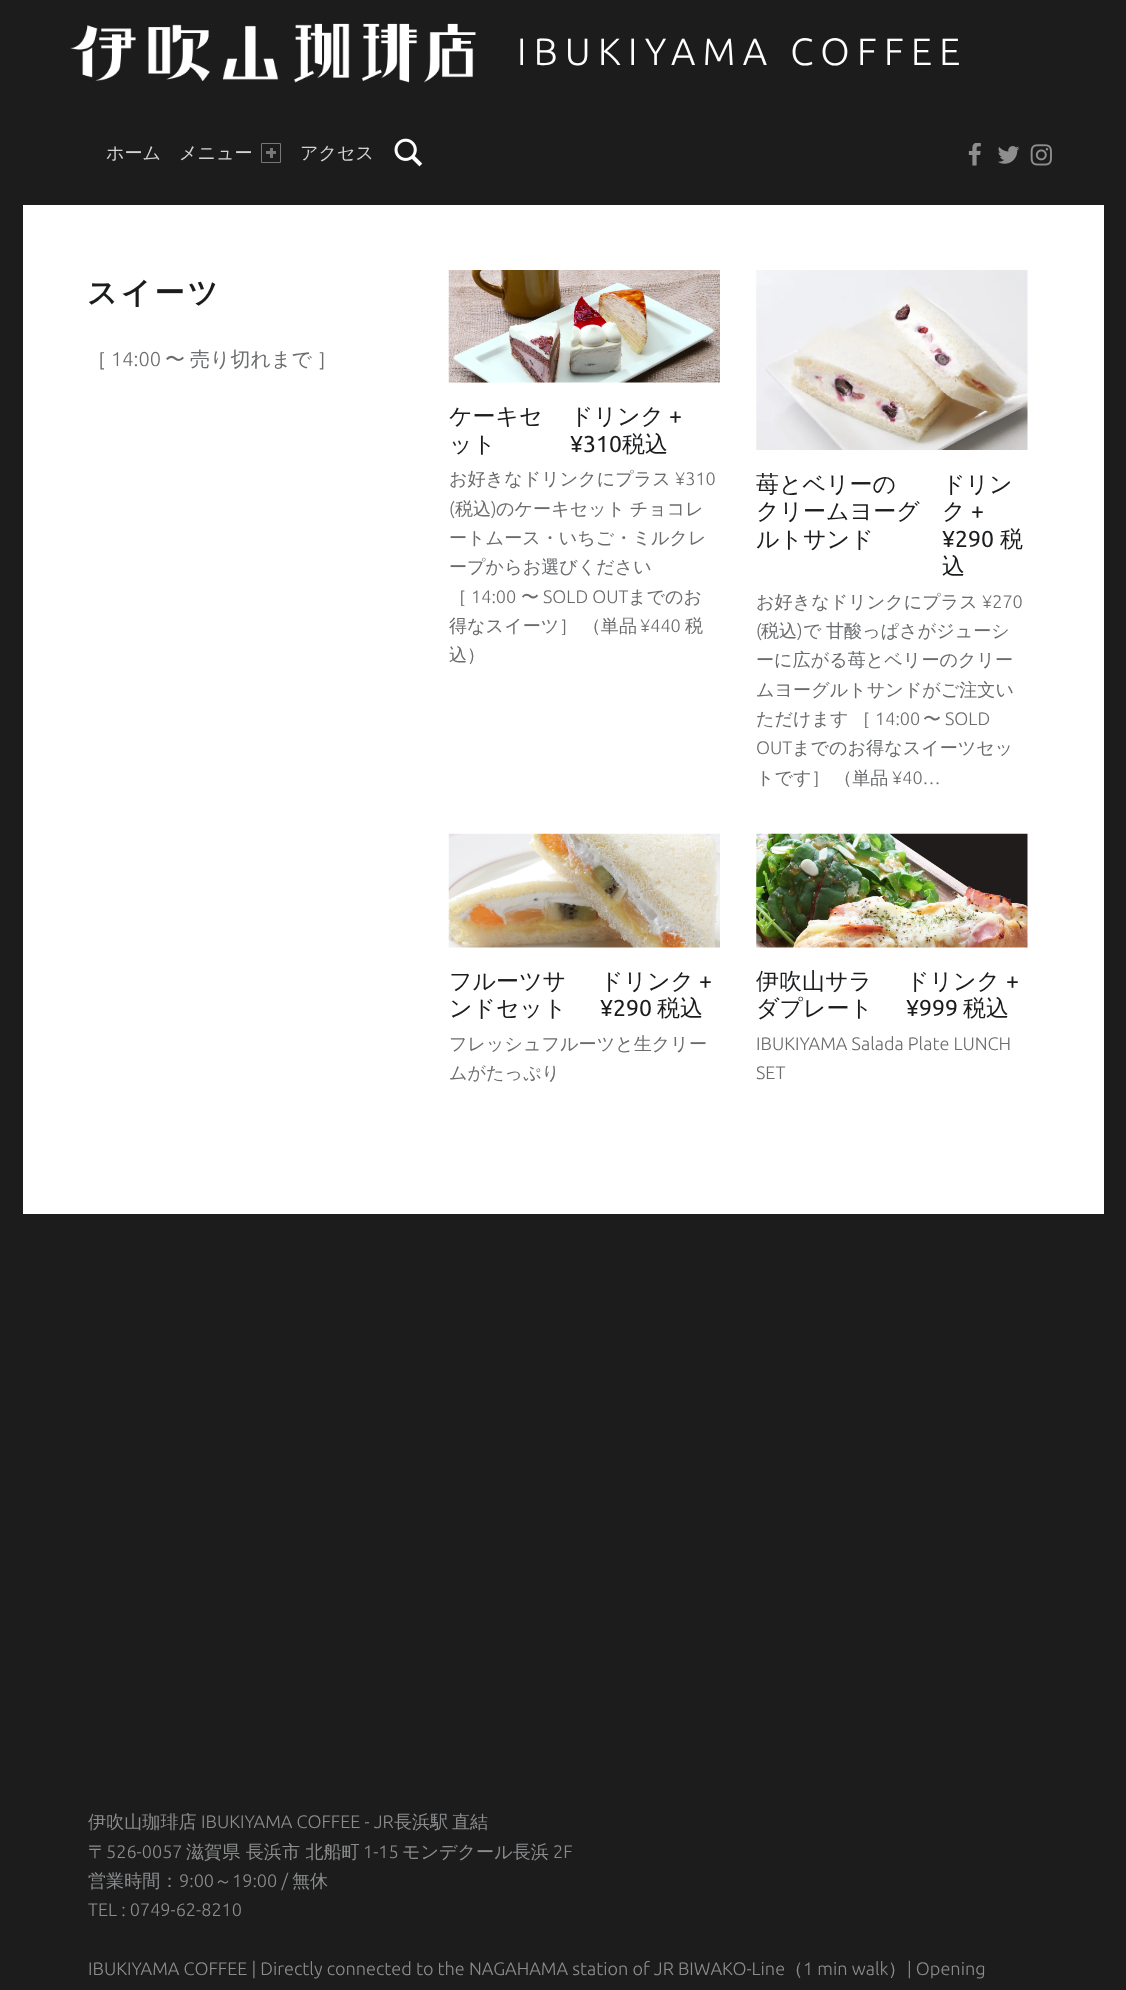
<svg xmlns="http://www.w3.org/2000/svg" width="1126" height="1990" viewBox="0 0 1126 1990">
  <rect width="100%" height="100%" fill="#1c1c1c"/>
  <path d="M23 205h1081v1009H23z" fill="#fff"/>
  <image x="70" y="23" width="406" height="60" href="img/1.png"/>
  <path d="M261.5 143.5h19v19H261.5z" fill="none" stroke="#767778"/>
  <path d="M266 151h10v3H266z" fill="#767778"/>
  <path d="M270 148h3v10H270z" fill="#767778"/>
  <image x="394" y="138" width="29" height="29" href="img/2.png"/>
  <image x="968" y="143" width="13" height="23" href="img/3.png"/>
  <image x="998" y="146" width="22" height="18" href="img/4.png"/>
  <image x="1030" y="144" width="22" height="22" href="img/5.png"/>
  <image x="448" y="270" width="272" height="113" href="img/6.png"/>
  <image x="756" y="270" width="272" height="180" href="img/7.png"/>
  <image x="448" y="833" width="272" height="115" href="img/8.png"/>
  <image x="756" y="833" width="272" height="115" href="img/9.png"/>
  <text x="517" y="65" font-family="Ubuntu" font-size="38" font-weight="300" letter-spacing="7.25" fill="#fff">IBUKIYAMA COFFEE</text>
  <g font-family="WenQuanYi Zen Hei" font-size="18.1" font-weight="500" fill="#d1d2d2">
    <text x="106" y="159">ホーム</text>
    <text x="179" y="159">メニュー</text>
    <text x="300" y="159">アクセス</text>
  </g>
  <text x="87" y="303" font-family="WenQuanYi Zen Hei" font-size="30" font-weight="bold" letter-spacing="3" fill="#1a1c1e">スイーツ</text>
  <text x="87" y="366" font-family="WenQuanYi Zen Hei" font-size="20" font-weight="500" fill="#6a6c6e">［</text>
  <text x="111" y="366" font-family="Ubuntu" font-size="20" font-weight="300" fill="#6a6c6e">14:00</text>
  <text x="165" y="366" word-spacing="-1" font-family="WenQuanYi Zen Hei" font-size="20" font-weight="500" fill="#6a6c6e">〜 売り切れまで ］</text>
  <g font-family="WenQuanYi Zen Hei" font-size="23" font-weight="500" fill="#1a1c1e">
    <text x="449" y="424">ケーキセ</text>
    <text x="449" y="452">ット</text>
    <text x="570" y="424">ドリンク</text>
  </g>
  <g font-family="Ubuntu" font-size="23" fill="#1a1c1e">
    <text x="669" y="424">+</text>
    <text x="570" y="452">¥310</text>
  </g>
  <text x="622" y="452" font-family="WenQuanYi Zen Hei" font-size="23" font-weight="500" fill="#1a1c1e">税込</text>
  <text x="449" y="485" font-family="WenQuanYi Zen Hei" font-size="18.1" font-weight="500" fill="#6a6c6e">お好きなドリンクにプラス</text>
  <g font-family="Ubuntu" font-size="18.1" font-weight="300" fill="#6a6c6e">
    <text x="675" y="485">¥310</text>
    <text x="449" y="515">(</text>
  </g>
  <text x="455" y="515" font-family="WenQuanYi Zen Hei" font-size="18.1" font-weight="500" fill="#6a6c6e">税込</text>
  <text x="491" y="515" font-family="Ubuntu" font-size="18.1" font-weight="300" fill="#6a6c6e">)</text>
  <g font-family="WenQuanYi Zen Hei" font-size="18.1" font-weight="500" fill="#6a6c6e">
    <text x="496" y="515" word-spacing="-1">のケーキセット チョコレ</text>
    <text x="449" y="544">ートムース・いちご・ミルクレ</text>
    <text x="449" y="573">ープからお選びください</text>
    <text x="449" y="603">［</text>
  </g>
  <text x="471" y="603" font-family="Ubuntu" font-size="18.1" font-weight="300" fill="#6a6c6e">14:00</text>
  <text x="521" y="603" font-family="WenQuanYi Zen Hei" font-size="18.1" font-weight="500" fill="#6a6c6e">〜</text>
  <text x="543" y="603" font-family="Ubuntu" font-size="18.1" font-weight="300" fill="#6a6c6e">SOLD OUT</text>
  <g font-family="WenQuanYi Zen Hei" font-size="18.1" font-weight="500" fill="#6a6c6e">
    <text x="628" y="603">までのお</text>
    <text x="449" y="632">得なスイーツ］ （単品</text>
  </g>
  <text x="640" y="632" font-family="Ubuntu" font-size="18.1" font-weight="300" fill="#6a6c6e">¥440</text>
  <g font-family="WenQuanYi Zen Hei" font-size="18.1" font-weight="500" fill="#6a6c6e">
    <text x="685" y="632">税</text>
    <text x="449" y="661">込）</text>
  </g>
  <g font-family="WenQuanYi Zen Hei" font-size="23" font-weight="500" fill="#1a1c1e">
    <text x="756" y="492">苺とベリーの</text>
    <text x="756" y="519">クリームヨーグ</text>
    <text x="756" y="547">ルトサンド</text>
    <text x="942" y="492">ドリン</text>
    <text x="942" y="519">ク</text>
  </g>
  <g font-family="Ubuntu" font-size="23" fill="#1a1c1e">
    <text x="971" y="519">+</text>
    <text x="942" y="547">¥290</text>
  </g>
  <g font-family="WenQuanYi Zen Hei" font-size="23" font-weight="500" fill="#1a1c1e">
    <text x="1000" y="547">税</text>
    <text x="942" y="574">込</text>
  </g>
  <text x="756" y="608" font-family="WenQuanYi Zen Hei" font-size="18.1" font-weight="500" fill="#6a6c6e">お好きなドリンクにプラス</text>
  <g font-family="Ubuntu" font-size="18.1" font-weight="300" fill="#6a6c6e">
    <text x="982" y="608">¥270</text>
    <text x="756" y="637">(</text>
  </g>
  <text x="761" y="637" font-family="WenQuanYi Zen Hei" font-size="18.1" font-weight="500" fill="#6a6c6e">税込</text>
  <text x="797" y="637" font-family="Ubuntu" font-size="18.1" font-weight="300" fill="#6a6c6e">)</text>
  <g font-family="WenQuanYi Zen Hei" font-size="18.1" font-weight="500" fill="#6a6c6e">
    <text x="803" y="637" word-spacing="-1">で 甘酸っぱさがジューシ</text>
    <text x="756" y="666">ーに広がる苺とベリーのクリー</text>
    <text x="756" y="696">ムヨーグルトサンドがご注文い</text>
    <text x="756" y="725" word-spacing="-1">ただけます ［</text>
  </g>
  <text x="875" y="725" font-family="Ubuntu" font-size="18.1" font-weight="300" fill="#6a6c6e">14:00</text>
  <text x="923" y="725" font-family="WenQuanYi Zen Hei" font-size="18.1" font-weight="500" fill="#6a6c6e">〜</text>
  <g font-family="Ubuntu" font-size="18.1" font-weight="300" fill="#6a6c6e">
    <text x="945" y="725">SOLD</text>
    <text x="756" y="754">OUT</text>
  </g>
  <g font-family="WenQuanYi Zen Hei" font-size="18.1" font-weight="500" fill="#6a6c6e">
    <text x="792" y="754">までのお得なスイーツセッ</text>
    <text x="756" y="784" word-spacing="-1">トです］ （単品</text>
  </g>
  <text x="892" y="784" font-family="Ubuntu" font-size="18.1" font-weight="300" fill="#6a6c6e">¥40…</text>
  <g font-family="WenQuanYi Zen Hei" font-size="23" font-weight="500" fill="#1a1c1e">
    <text x="449" y="989">フルーツサ</text>
    <text x="449" y="1016">ンドセット</text>
    <text x="600" y="989">ドリンク</text>
  </g>
  <g font-family="Ubuntu" font-size="23" fill="#1a1c1e">
    <text x="699" y="989">+</text>
    <text x="600" y="1016">¥290</text>
  </g>
  <text x="657" y="1016" font-family="WenQuanYi Zen Hei" font-size="23" font-weight="500" fill="#1a1c1e">税込</text>
  <g font-family="WenQuanYi Zen Hei" font-size="18.1" font-weight="500" fill="#6a6c6e">
    <text x="449" y="1050">フレッシュフルーツと生クリー</text>
    <text x="449" y="1079">ムがたっぷり</text>
  </g>
  <g font-family="WenQuanYi Zen Hei" font-size="23" font-weight="500" fill="#1a1c1e">
    <text x="756" y="989">伊吹山サラ</text>
    <text x="756" y="1016">ダプレート</text>
    <text x="906" y="989">ドリンク</text>
  </g>
  <g font-family="Ubuntu" font-size="23" fill="#1a1c1e">
    <text x="1006" y="989">+</text>
    <text x="906" y="1016">¥999</text>
  </g>
  <text x="963" y="1016" font-family="WenQuanYi Zen Hei" font-size="23" font-weight="500" fill="#1a1c1e">税込</text>
  <g font-family="Ubuntu" font-size="18.1" font-weight="300" fill="#6a6c6e">
    <text x="756" y="1050">IBUKIYAMA Salada Plate LUNCH</text>
    <text x="756" y="1079">SET</text>
  </g>
  <text x="88" y="1828" font-family="WenQuanYi Zen Hei" font-size="18.1" font-weight="500" fill="#8a8c8e">伊吹山珈琲店</text>
  <text x="201" y="1828" font-family="Ubuntu" font-size="18.1" font-weight="300" fill="#8a8c8e">IBUKIYAMA COFFEE - JR</text>
  <g font-family="WenQuanYi Zen Hei" font-size="18.1" font-weight="500" fill="#8a8c8e">
    <text x="394" y="1828">長浜駅</text>
    <text x="452" y="1828">直結</text>
    <text x="88" y="1858">〒</text>
  </g>
  <text x="106" y="1858" font-family="Ubuntu" font-size="18.1" font-weight="300" fill="#8a8c8e">526-0057</text>
  <text x="186" y="1858" font-family="WenQuanYi Zen Hei" font-size="18.1" font-weight="500" fill="#8a8c8e">滋賀県 長浜市 北船町</text>
  <text x="363" y="1858" font-family="Ubuntu" font-size="18.1" font-weight="300" fill="#8a8c8e">1-15</text>
  <text x="402" y="1858" font-family="WenQuanYi Zen Hei" font-size="18.1" font-weight="500" fill="#8a8c8e">モンデクール長浜</text>
  <text x="553" y="1858" font-family="Ubuntu" font-size="18.1" font-weight="300" fill="#8a8c8e">2F</text>
  <text x="88" y="1887" font-family="WenQuanYi Zen Hei" font-size="18.1" font-weight="500" fill="#8a8c8e">営業時間：</text>
  <text x="179" y="1887" font-family="Ubuntu" font-size="18.1" font-weight="300" fill="#8a8c8e">9:00</text>
  <text x="214" y="1887" font-family="WenQuanYi Zen Hei" font-size="18.1" font-weight="500" fill="#8a8c8e">～</text>
  <text x="232" y="1887" font-family="Ubuntu" font-size="18.1" font-weight="300" fill="#8a8c8e">19:00 /</text>
  <text x="292" y="1887" font-family="WenQuanYi Zen Hei" font-size="18.1" font-weight="500" fill="#8a8c8e">無休</text>
  <g font-family="Ubuntu" font-size="18.1" font-weight="300" fill="#8a8c8e">
    <text x="88" y="1916">TEL : 0749-62-8210</text>
    <text x="88" y="1975">IBUKIYAMA COFFEE | Directly connected to the NAGAHAMA station of JR BIWAKO-Line</text>
  </g>
  <text x="785" y="1975" font-family="WenQuanYi Zen Hei" font-size="18.1" font-weight="500" fill="#8a8c8e">（</text>
  <text x="803" y="1975" font-family="Ubuntu" font-size="18.1" font-weight="300" fill="#8a8c8e">1 min walk</text>
  <text x="888" y="1975" font-family="WenQuanYi Zen Hei" font-size="18.1" font-weight="500" fill="#8a8c8e">）</text>
  <text x="907" y="1975" font-family="Ubuntu" font-size="18.1" font-weight="300" fill="#8a8c8e">| Opening</text>
</svg>
